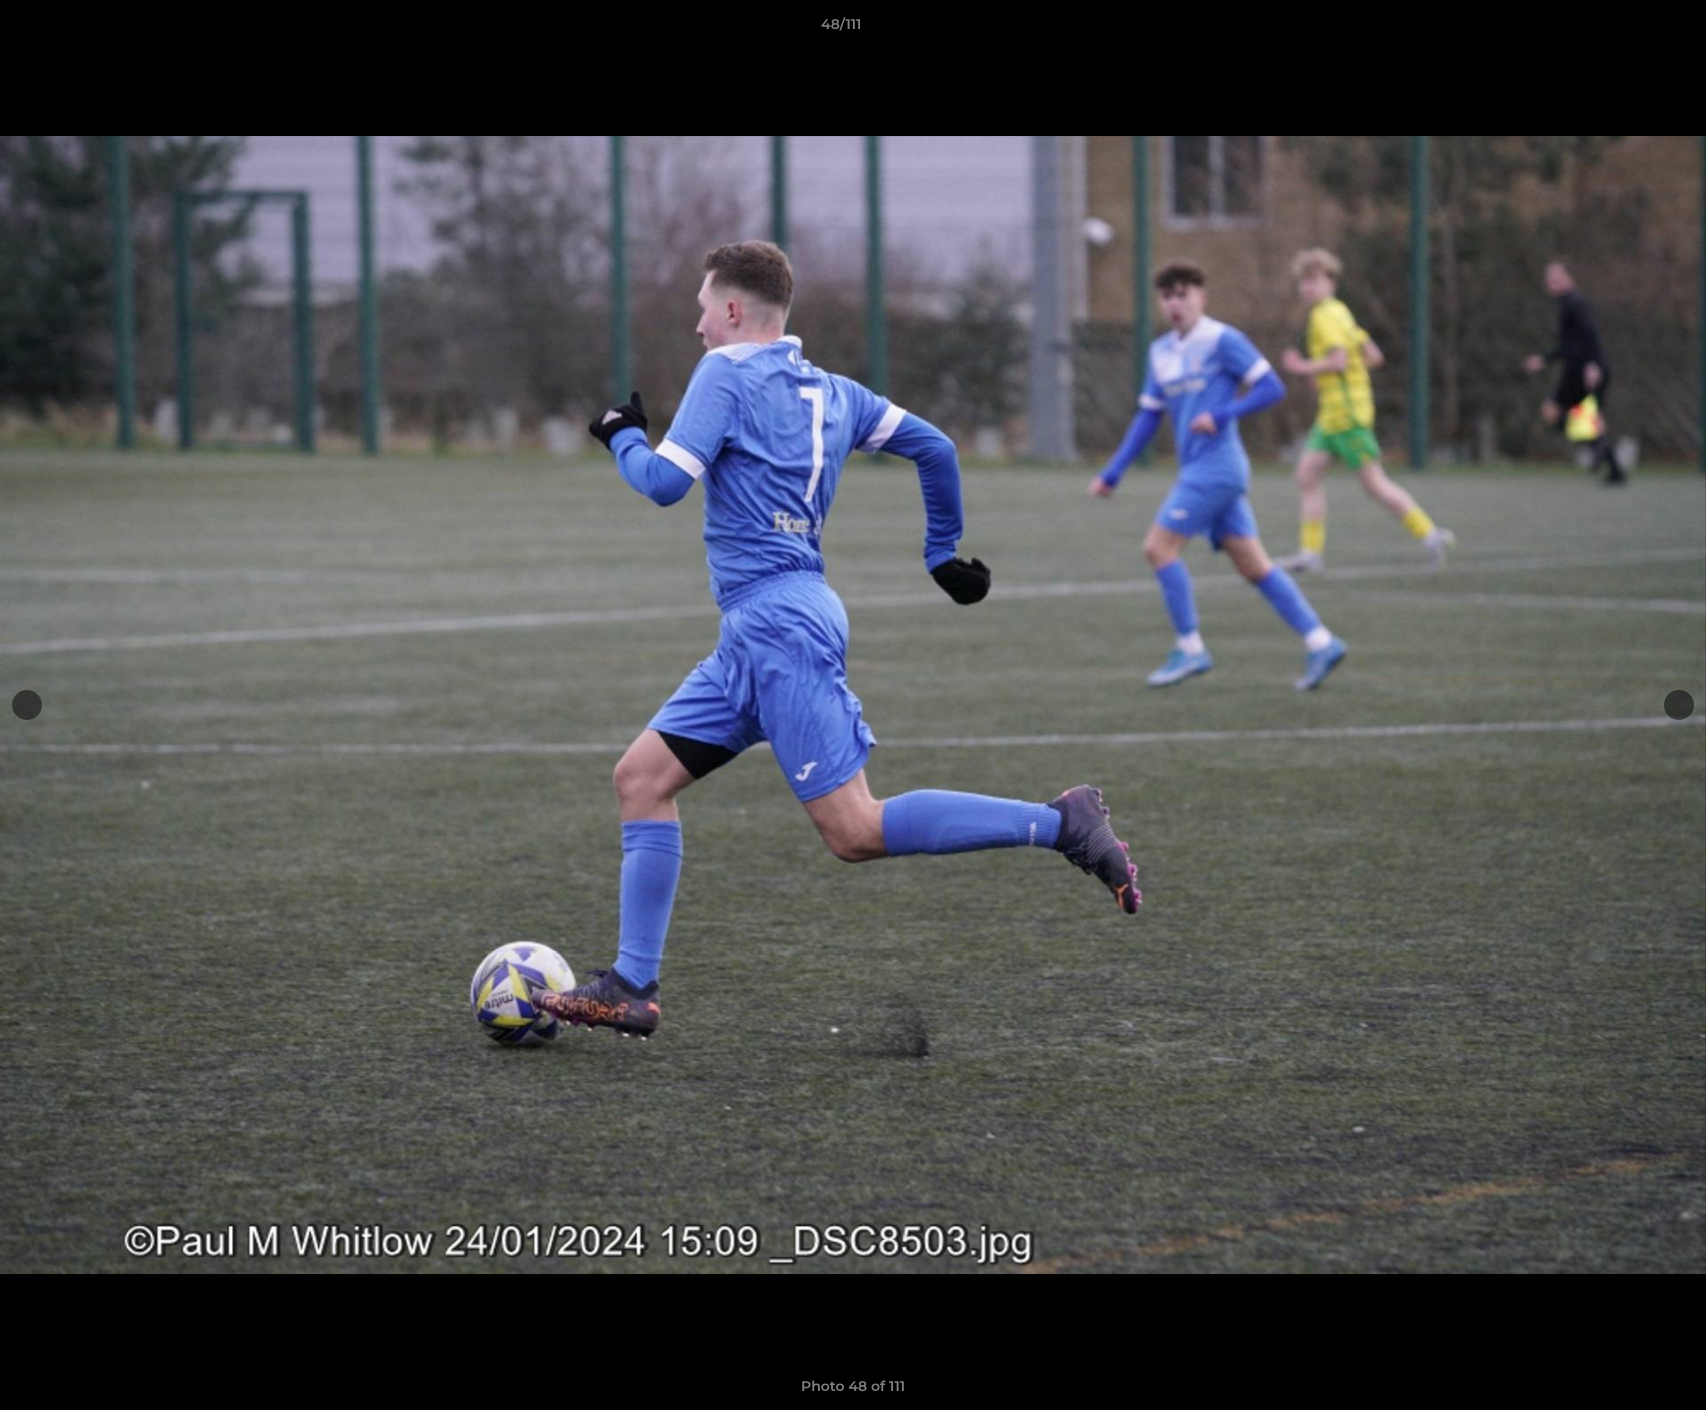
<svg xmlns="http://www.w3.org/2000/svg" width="1706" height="1410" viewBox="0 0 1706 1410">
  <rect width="100%" height="100%" fill="#000"/>
  <image x="0" y="136" width="1706" height="1139" href="img/1.png"/>
  <circle cx="27" cy="705" r="15" fill="#00000080"/>
  <circle cx="1679" cy="705" r="15" fill="#00000080"/>
  <g font-family="Montserrat" font-size="14" font-weight="600" fill="#808080">
    <text x="821" y="29">48/111</text>
    <text x="801" y="1391">Photo 48 of 111</text>
  </g>
</svg>
